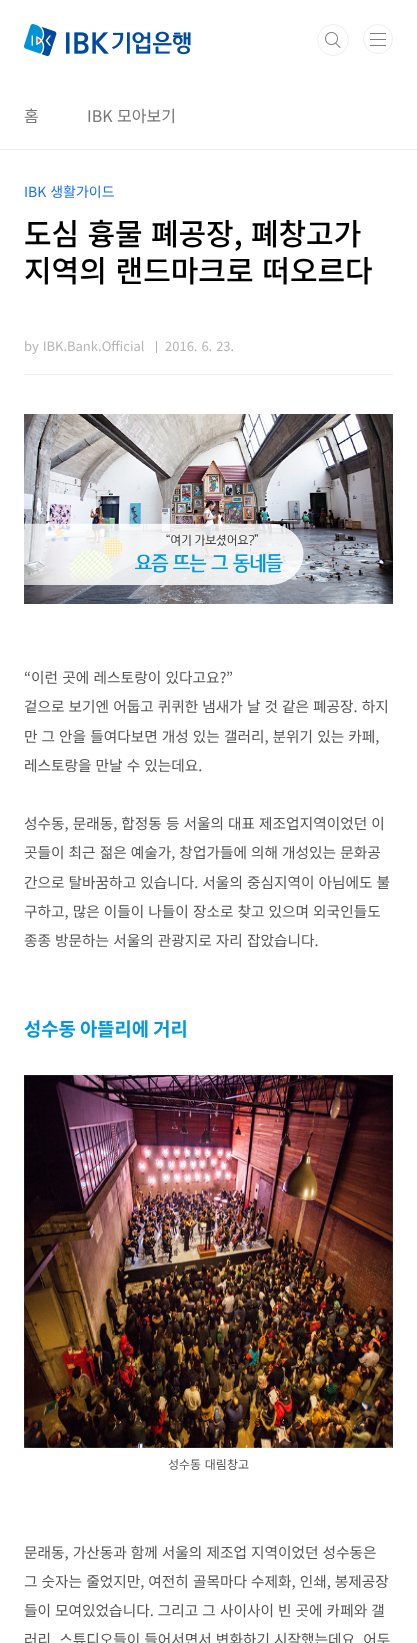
<svg xmlns="http://www.w3.org/2000/svg" width="417" height="1643" viewBox="0 0 417 1643">
  <rect width="100%" height="100%" fill="#fff"/>
  <path d="M0 149h417v1H0z" fill="#eee"/>
  <image x="24" y="24" width="167" height="32" href="img/1.png"/>
  <circle cx="333" cy="40" r="14.5" fill="none" stroke="#eee"/>
  <circle cx="333" cy="40" r="16" fill="#fff"/>
  <image x="325" y="32" width="16" height="16" href="img/2.png"/>
  <circle cx="333" cy="40" r="15.5" fill="none" stroke="#eee"/>
  <circle cx="378" cy="39" r="14.5" fill="none" stroke="#eee"/>
  <path d="M370 33h16v1H370z" fill="#7f7f7f"/>
  <path d="M370 39h16v1H370z" fill="#7f7f7f"/>
  <path d="M370 45h16v1H370z" fill="#7f7f7f"/>
  <path d="M24 374h369v1H24z" fill="#eee"/>
  <path d="M156 341h1v12H156z" fill="#b3b3b3"/>
  <image x="24" y="414" width="369" height="190" href="img/3.png"/>
  <image x="24" y="1075" width="369" height="373" href="img/4.png"/>
  <g font-family="Noto Sans KR" font-size="16" fill="#777">
    <text x="24" y="122">홈</text>
    <text x="87" y="122" word-spacing="1">IBK 모아보기</text>
  </g>
  <text x="24" y="197" word-spacing="0.75" font-family="Noto Sans KR" font-size="14" fill="#1d74e8">IBK 생활가이드</text>
  <g font-family="Noto Sans KR" font-size="30" font-weight="500" fill="#000">
    <text x="24" y="245" word-spacing="1.5">도심 흉물 폐공장, 폐창고가</text>
    <text x="24" y="282" word-spacing="2">지역의 랜드마크로 떠오르다</text>
  </g>
  <g font-family="Noto Sans KR" font-size="13" fill="#b4b6b4">
    <text x="24" y="351" word-spacing="1">by IBK.Bank.Official</text>
    <text x="165" y="351" word-spacing="1">2016. 6. 23.</text>
  </g>
  <g font-family="Noto Sans KR" font-size="14.7" fill="#555">
    <text x="24" y="683" word-spacing="1">“이런 곳에 레스토랑이 있다고요?”</text>
    <text x="24" y="712" word-spacing="0.75">겉으로 보기엔 어둡고 퀴퀴한 냄새가 날 것 같은 폐공장. 하지</text>
    <text x="24" y="742" word-spacing="0.75">만 그 안을 들여다보면 개성 있는 갤러리, 분위기 있는 카페,</text>
    <text x="24" y="771" word-spacing="0.75">레스토랑을 만날 수 있는데요.</text>
    <text x="24" y="829" word-spacing="0.75">성수동, 문래동, 합정동 등 서울의 대표 제조업지역이었던 이</text>
    <text x="24" y="858" word-spacing="0.75">곳들이 최근 젊은 예술가, 창업가들에 의해 개성있는 문화공</text>
    <text x="24" y="888" word-spacing="0.75">간으로 탈바꿈하고 있습니다. 서울의 중심지역이 아님에도 불</text>
    <text x="24" y="917" word-spacing="0.75">구하고, 많은 이들이 나들이 장소로 찾고 있으며 외국인들도</text>
    <text x="24" y="946" word-spacing="0.75">종종 방문하는 서울의 관광지로 자리 잡았습니다.</text>
  </g>
  <text x="24" y="1036" font-family="Noto Sans KR" font-size="18.75" font-weight="bold" fill="#0199da">성수동 아뜰리에 거리</text>
  <text x="168" y="1469" word-spacing="1" font-family="Noto Sans KR" font-size="12" fill="#555">성수동 대림창고</text>
  <g font-family="Noto Sans KR" font-size="14.7" fill="#555">
    <text x="24" y="1558" word-spacing="0.75">문래동, 가산동과 함께 서울의 제조업 지역이었던 성수동은</text>
    <text x="24" y="1587" word-spacing="0.75">그 숫자는 줄었지만, 여전히 골목마다 수제화, 인쇄, 봉제공장</text>
    <text x="24" y="1616" word-spacing="0.75">들이 모여있었습니다. 그리고 그 사이사이 빈 곳에 카페와 갤</text>
    <text x="24" y="1645" word-spacing="0.75">러리, 스튜디오들이 들어서면서 변화하기 시작했는데요. 어두</text>
  </g>
</svg>
